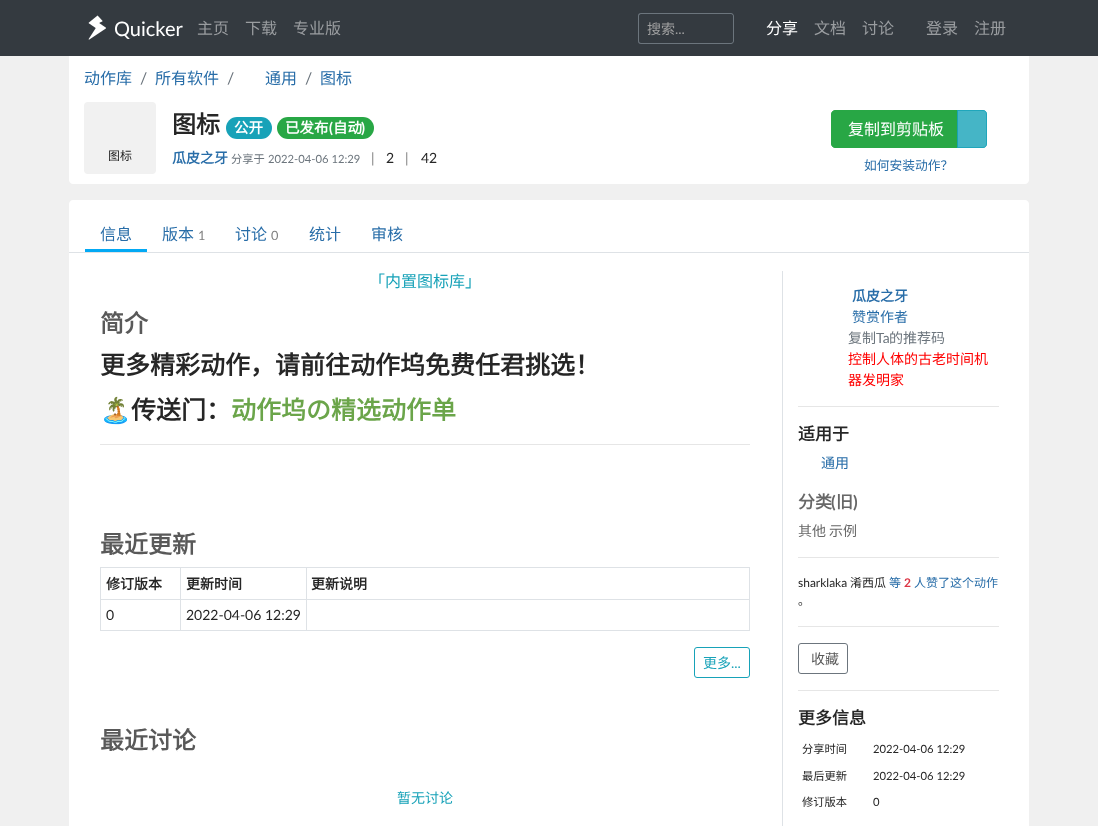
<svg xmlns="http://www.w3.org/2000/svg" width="1098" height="826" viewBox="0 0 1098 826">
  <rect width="100%" height="100%" fill="#f0f0f0"/>
  <path d="M69 54H1029V180C1029 182 1027 184 1025 184H73C71 184 69 182 69 180Z" fill="#fff"/>
  <path d="M0 0h1098v56H0z" fill="#343a40"/>
  <image x="88" y="15" width="18" height="25" href="img/1.png"/>
  <path d="M641 13H718V44H641C639 44 638 43 638 41V16C638 14 639 13 641 13ZM641 14H718V43H641C640 43 639 42 639 41V16C639 15 640 14 641 14Z" fill="#6c757d" fill-rule="evenodd"/>
  <path d="M717 13H731C732.5 13 734 14.5 734 16V41C734 42.5 732.5 44 731 44H717ZM717 14H731C732 14 733 15 733 16V41C733 42 732 43 731 43H717Z" fill="#6c757d" fill-rule="evenodd"/>
  <rect x="84" y="102" width="72" height="72" rx="4" fill="#f1f1f1"/>
  <rect x="226" y="117" width="46" height="22" rx="11" fill="#17a2b8"/>
  <rect x="277" y="117" width="97" height="22" rx="11" fill="#28a745"/>
  <path d="M835 110.5H957.5V147.5H835C833 147.5 831.5 146 831.5 144V114C831.5 112 833 110.5 835 110.5Z" fill="#28a745" stroke="#28a745"/>
  <path d="M957 110H983C985 110 987 112 987 114V144C987 146 985 148 983 148H957Z" fill="#17a2b8cc"/>
  <path d="M957.5 110.5H983C985 110.5 986.5 112 986.5 114V144C986.5 146 985 147.5 983 147.5H957.5Z" fill="none" stroke="#17a2b8cc"/>
  <path d="M73 200H1025C1027 200 1029 202 1029 204V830H69V204C69 202 71 200 73 200Z" fill="#fff"/>
  <path d="M69 252h960v1H69z" fill="#dee2e6"/>
  <path d="M85 249h62v3H85z" fill="#03a9f4"/>
  <path d="M100 444h650v1H100z" fill="#e6e6e6"/>
  <path d="M100 567h650v1H100z" fill="#dee2e6"/>
  <path d="M749 567h1v64H749z" fill="#dee2e6"/>
  <path d="M100 630h650v1H100z" fill="#dee2e6"/>
  <path d="M100 567h1v64H100z" fill="#dee2e6"/>
  <path d="M306 599h444v1H306z" fill="#dee2e6"/>
  <path d="M306 599h1v32H306z" fill="#dee2e6"/>
  <path d="M180 599h127v1H180z" fill="#dee2e6"/>
  <path d="M180 599h1v32H180z" fill="#dee2e6"/>
  <path d="M100 599h81v1H100z" fill="#dee2e6"/>
  <path d="M180 567h1v33H180z" fill="#dee2e6"/>
  <path d="M306 567h1v33H306z" fill="#dee2e6"/>
  <rect x="694.5" y="647.5" width="55" height="30" rx="2.5" fill="none" stroke="#17a2b8"/>
  <path d="M782 271h1v555H782z" fill="#dee2e6"/>
  <path d="M798 406h201v1H798z" fill="#e6e6e6"/>
  <path d="M798 557h201v1H798z" fill="#e6e6e6"/>
  <path d="M798 626h201v1H798z" fill="#e6e6e6"/>
  <rect x="798.5" y="643.5" width="49" height="30" rx="2.5" fill="none" stroke="#6c757d"/>
  <path d="M798 690h201v1H798z" fill="#e6e6e6"/>
  <text x="114" y="36" font-family="Lato" font-size="20" fill="#fff">Quicker</text>
  <g font-family="Noto Sans CJK SC" font-size="16" fill="#9a9da0">
    <text x="197" y="34">主页</text>
    <text x="245" y="34">下载</text>
    <text x="293" y="34">专业版</text>
  </g>
  <text x="647" y="34" font-family="Noto Sans CJK SC" font-size="14" fill="#a0a0a0">搜索</text>
  <text x="675" y="34" font-family="Lato" font-size="14" fill="#a0a0a0">...</text>
  <text x="766" y="34" font-family="Noto Sans CJK SC" font-size="16" fill="#fff">分享</text>
  <g font-family="Noto Sans CJK SC" font-size="16" fill="#9a9da0">
    <text x="814" y="34">文档</text>
    <text x="862" y="34">讨论</text>
    <text x="926" y="34">登录</text>
    <text x="974" y="34">注册</text>
  </g>
  <text x="84" y="84" font-family="Noto Sans CJK SC" font-size="16" fill="#286da8">动作库</text>
  <text x="140" y="84" font-family="Lato" font-size="16" fill="#6c757d">/</text>
  <text x="155" y="84" font-family="Noto Sans CJK SC" font-size="16" fill="#286da8">所有软件</text>
  <text x="227" y="84" font-family="Lato" font-size="16" fill="#6c757d">/</text>
  <text x="265" y="84" font-family="Noto Sans CJK SC" font-size="16" fill="#286da8">通用</text>
  <text x="305" y="84" font-family="Lato" font-size="16" fill="#6c757d">/</text>
  <text x="320" y="84" font-family="Noto Sans CJK SC" font-size="16" fill="#286da8">图标</text>
  <text x="108" y="160" font-family="Noto Sans CJK SC" font-size="12" fill="#262626">图标</text>
  <text x="172" y="133" font-family="Noto Sans CJK SC" font-size="24" font-weight="bold" fill="#262626">图标</text>
  <g font-family="Noto Sans CJK SC" font-size="14.5" font-weight="bold" fill="#fff">
    <text x="234" y="133">公开</text>
    <text x="285" y="133">已发布</text>
  </g>
  <text x="329" y="133" font-family="Lato" font-size="14.5" font-weight="bold" fill="#fff">(</text>
  <text x="333" y="133" font-family="Noto Sans CJK SC" font-size="14.5" font-weight="bold" fill="#fff">自动</text>
  <text x="361" y="133" font-family="Lato" font-size="14.5" font-weight="bold" fill="#fff">)</text>
  <text x="172" y="163" font-family="Noto Sans CJK SC" font-size="14" font-weight="bold" fill="#286da8">瓜皮之牙</text>
  <text x="231" y="163" font-family="Noto Sans CJK SC" font-size="11.25" fill="#6c757d">分享于</text>
  <text x="268" y="163" font-family="Lato" font-size="11.25" fill="#6c757d">2022-04-06 12:29</text>
  <text x="371" y="163" font-family="Lato" font-size="14" fill="#808080">|</text>
  <text x="386" y="163" font-family="Lato" font-size="14" fill="#262626">2</text>
  <text x="405" y="163" font-family="Lato" font-size="14" fill="#808080">|</text>
  <text x="421" y="163" font-family="Lato" font-size="14" fill="#262626">42</text>
  <text x="848" y="135" font-family="Noto Sans CJK SC" font-size="16" fill="#fff">复制到剪贴板</text>
  <text x="864" y="170" font-family="Noto Sans CJK SC" font-size="12.75" fill="#286da8">如何安装动作？</text>
  <g font-family="Noto Sans CJK SC" font-size="16" fill="#286da8">
    <text x="100" y="240">信息</text>
    <text x="162" y="240">版本</text>
  </g>
  <text x="198" y="240" font-family="Lato" font-size="12.75" fill="#808080">1</text>
  <text x="235" y="240" font-family="Noto Sans CJK SC" font-size="16" fill="#286da8">讨论</text>
  <text x="271" y="240" font-family="Lato" font-size="12.75" fill="#808080">0</text>
  <g font-family="Noto Sans CJK SC" font-size="16" fill="#286da8">
    <text x="309" y="240">统计</text>
    <text x="371" y="240">审核</text>
  </g>
  <text x="369" y="287" font-family="Noto Sans CJK SC" font-size="16" fill="#17a2b8">「内置图标库」</text>
  <text x="100" y="332" font-family="Noto Sans CJK SC" font-size="24" font-weight="bold" fill="#595959">简介</text>
  <text x="100" y="374" font-family="Noto Sans CJK SC" font-size="25" font-weight="bold" fill="#262626">更多精彩动作，请前往动作坞免费任君挑选！</text>
  <text x="100" y="419" font-family="Noto Color Emoji" font-size="25" font-weight="bold" fill="#262626">🏝️</text>
  <text x="131" y="419" font-family="Noto Sans CJK SC" font-size="25" font-weight="bold" fill="#262626">传送门：</text>
  <text x="231" y="419" font-family="Noto Sans CJK SC" font-size="25" font-weight="bold" fill="#6ba54a">动作坞の精选动作单</text>
  <text x="100" y="553" font-family="Noto Sans CJK SC" font-size="24" font-weight="bold" fill="#595959">最近更新</text>
  <g font-family="Noto Sans CJK SC" font-size="14" font-weight="bold" fill="#262626">
    <text x="106" y="589">修订版本</text>
    <text x="186" y="589">更新时间</text>
    <text x="311" y="589">更新说明</text>
  </g>
  <g font-family="Lato" font-size="14" fill="#262626">
    <text x="106" y="620">0</text>
    <text x="186" y="620">2022-04-06 12:29</text>
  </g>
  <text x="703" y="668" font-family="Noto Sans CJK SC" font-size="14" fill="#17a2b8">更多</text>
  <text x="731" y="668" font-family="Lato" font-size="14" fill="#17a2b8">...</text>
  <text x="100" y="749" font-family="Noto Sans CJK SC" font-size="24" font-weight="bold" fill="#595959">最近讨论</text>
  <text x="397" y="803" font-family="Noto Sans CJK SC" font-size="14" fill="#17a2b8">暂无讨论</text>
  <text x="852" y="301" font-family="Noto Sans CJK SC" font-size="14" font-weight="bold" fill="#286da8">瓜皮之牙</text>
  <text x="852" y="322" font-family="Noto Sans CJK SC" font-size="14" fill="#286da8">赞赏作者</text>
  <text x="848" y="343" font-family="Noto Sans CJK SC" font-size="14" fill="#6c757d">复制</text>
  <text x="876" y="343" font-family="Lato" font-size="14" fill="#6c757d">Ta</text>
  <text x="889" y="343" font-family="Noto Sans CJK SC" font-size="14" fill="#6c757d">的推荐码</text>
  <g font-family="Noto Sans CJK SC" font-size="14" fill="#f00">
    <text x="848" y="364">控制人体的古老时间机</text>
    <text x="848" y="385">器发明家</text>
  </g>
  <text x="798" y="440" font-family="Noto Sans CJK SC" font-size="17" font-weight="bold" fill="#262626">适用于</text>
  <text x="821" y="468" font-family="Noto Sans CJK SC" font-size="14" fill="#286da8">通用</text>
  <text x="798" y="508" font-family="Noto Sans CJK SC" font-size="17" font-weight="bold" fill="#676767">分类</text>
  <text x="831" y="508" font-family="Lato" font-size="17" font-weight="bold" fill="#676767">(</text>
  <text x="836" y="508" font-family="Noto Sans CJK SC" font-size="17" font-weight="bold" fill="#676767">旧</text>
  <text x="853" y="508" font-family="Lato" font-size="17" font-weight="bold" fill="#676767">)</text>
  <g font-family="Noto Sans CJK SC" font-size="14" fill="#676767">
    <text x="798" y="536">其他</text>
    <text x="829" y="536">示例</text>
  </g>
  <text x="798" y="587" font-family="Lato" font-size="12" fill="#262626">sharklaka</text>
  <text x="850" y="587" font-family="Noto Sans CJK SC" font-size="12" fill="#262626">淆西瓜</text>
  <text x="889" y="587" font-family="Noto Sans CJK SC" font-size="12" fill="#286da8">等</text>
  <text x="904" y="587" font-family="Lato" font-size="12" font-weight="bold" fill="#dc3545">2</text>
  <text x="914" y="587" font-family="Noto Sans CJK SC" font-size="12" fill="#286da8">人赞了这个动作</text>
  <text x="798" y="605" font-family="Noto Sans CJK SC" font-size="12" fill="#262626">。</text>
  <text x="811" y="664" font-family="Noto Sans CJK SC" font-size="14" fill="#595959">收藏</text>
  <text x="798" y="724" font-family="Noto Sans CJK SC" font-size="17" font-weight="bold" fill="#262626">更多信息</text>
  <text x="802" y="753" font-family="Noto Sans CJK SC" font-size="11.25" fill="#262626">分享时间</text>
  <text x="873" y="753" font-family="Lato" font-size="11.25" fill="#262626">2022-04-06 12:29</text>
  <text x="802" y="780" font-family="Noto Sans CJK SC" font-size="11.25" fill="#262626">最后更新</text>
  <text x="873" y="780" font-family="Lato" font-size="11.25" fill="#262626">2022-04-06 12:29</text>
  <text x="802" y="806" font-family="Noto Sans CJK SC" font-size="11.25" fill="#262626">修订版本</text>
  <text x="873" y="806" font-family="Lato" font-size="11.25" fill="#262626">0</text>
</svg>
